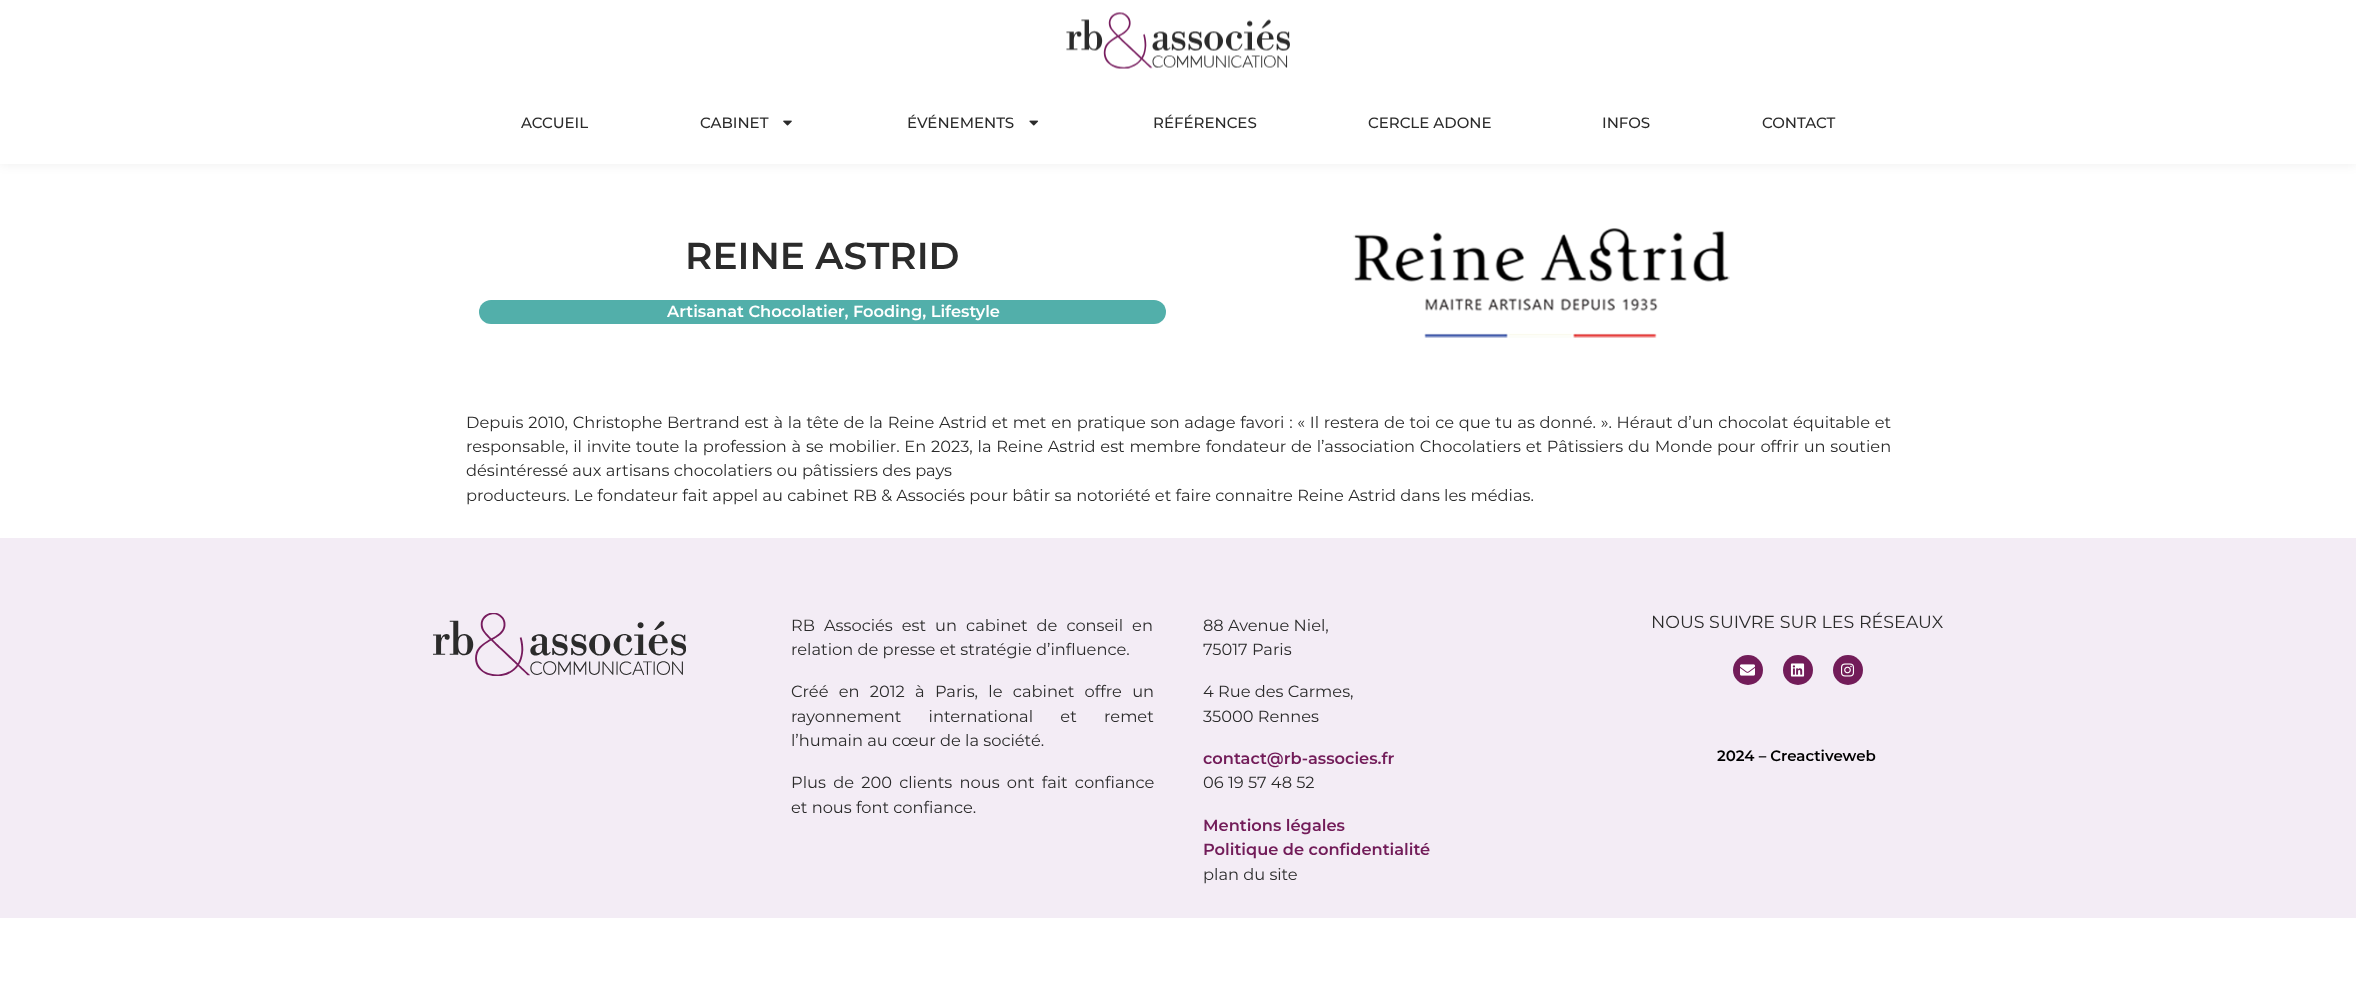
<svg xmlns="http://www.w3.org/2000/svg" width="2356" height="1001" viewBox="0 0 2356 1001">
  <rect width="100%" height="100%" fill="#fff"/>
  <path d="M0 0h2356v164H0z" fill="#00000012" filter="blur(6px)"/>
  <path d="M0 0h2356v164H0z" fill="#fff"/>
  <image x="1066" y="12" width="224" height="57" href="img/1.png"/>
  <image x="783" y="120" width="9" height="6" href="img/2.png"/>
  <image x="1029" y="120" width="10" height="6" href="img/3.png"/>
  <rect x="479" y="300" width="687" height="24" rx="12" fill="#52afaa"/>
  <image x="1353" y="228" width="377" height="110" href="img/4.png"/>
  <path d="M0 538h2356v380H0z" fill="#f3ecf5"/>
  <image x="433" y="613" width="253" height="63" href="img/5.png"/>
  <circle cx="1748" cy="670" r="15" fill="#721c59"/>
  <image x="1740" y="664" width="15" height="12" href="img/6.png"/>
  <circle cx="1798" cy="670" r="15" fill="#721c59"/>
  <image x="1790" y="663" width="15" height="14" href="img/7.png"/>
  <circle cx="1848" cy="670" r="15" fill="#721c59"/>
  <image x="1841" y="663" width="14" height="14" href="img/8.png"/>
  <g font-family="Montserrat" font-size="15" font-weight="500" fill="#2b2b2b">
    <text x="521" y="128">ACCUEIL</text>
    <text x="700" y="128">CABINET</text>
    <text x="907" y="128">ÉVÉNEMENTS</text>
    <text x="1153" y="128">RÉFÉRENCES</text>
    <text x="1368" y="128">CERCLE ADONE</text>
    <text x="1602" y="128">INFOS</text>
    <text x="1762" y="128">CONTACT</text>
  </g>
  <text x="685" y="269" font-family="Montserrat" font-size="37.5" font-weight="600" fill="#2b2b2b">REINE ASTRID</text>
  <text x="667" y="317" font-family="Montserrat" font-size="16.25" font-weight="600" fill="#fff">Artisanat Chocolatier, Fooding, Lifestyle</text>
  <g font-family="Montserrat" font-size="16.25" fill="#2b2b2b">
    <text x="466" y="428" word-spacing="0.45">Depuis 2010, Christophe Bertrand est à la tête de la Reine Astrid et met en pratique son adage favori : « Il restera de toi ce que tu as donné. ». Héraut d’un chocolat équitable et</text>
    <text x="466" y="452" word-spacing="0.5">responsable, il invite toute la profession à se mobilier. En 2023, la Reine Astrid est membre fondateur de l’association Chocolatiers et Pâtissiers du Monde pour offrir un soutien</text>
    <text x="466" y="476">désintéressé aux artisans chocolatiers ou pâtissiers des pays</text>
    <text x="466" y="501">producteurs. Le fondateur fait appel au cabinet RB &amp; Associés pour bâtir sa notoriété et faire connaitre Reine Astrid dans les médias.</text>
    <text x="791" y="631" word-spacing="4.75">RB Associés est un cabinet de conseil en</text>
    <text x="791" y="655">relation de presse et stratégie d’influence.</text>
    <text x="791" y="697" word-spacing="6">Créé en 2012 à Paris, le cabinet offre un</text>
    <text x="791" y="722" word-spacing="23">rayonnement international et remet</text>
    <text x="791" y="746">l’humain au cœur de la société.</text>
    <text x="791" y="788" word-spacing="3">Plus de 200 clients nous ont fait confiance</text>
    <text x="791" y="813">et nous font confiance.</text>
    <text x="1203" y="631">88 Avenue Niel,</text>
    <text x="1203" y="655">75017 Paris</text>
    <text x="1203" y="697">4 Rue des Carmes,</text>
    <text x="1203" y="722">35000 Rennes</text>
  </g>
  <text x="1203" y="764" font-family="Montserrat" font-size="16.25" font-weight="600" fill="#721c59">contact@rb-associes.fr</text>
  <text x="1203" y="788" font-family="Montserrat" font-size="16.25" fill="#2b2b2b">06 19 57 48 52</text>
  <g font-family="Montserrat" font-size="16.25" font-weight="600" fill="#721c59">
    <text x="1203" y="831">Mentions légales</text>
    <text x="1203" y="855">Politique de confidentialité</text>
  </g>
  <text x="1203" y="880" font-family="Montserrat" font-size="16.25" fill="#2b2b2b">plan du site</text>
  <text x="1651" y="628" font-family="Montserrat" font-size="17.5" fill="#2b2b2b">NOUS SUIVRE SUR LES RÉSEAUX</text>
  <text x="1717" y="761" font-family="Montserrat" font-size="15" font-weight="600" fill="#000">2024 – Creactiveweb</text>
</svg>
